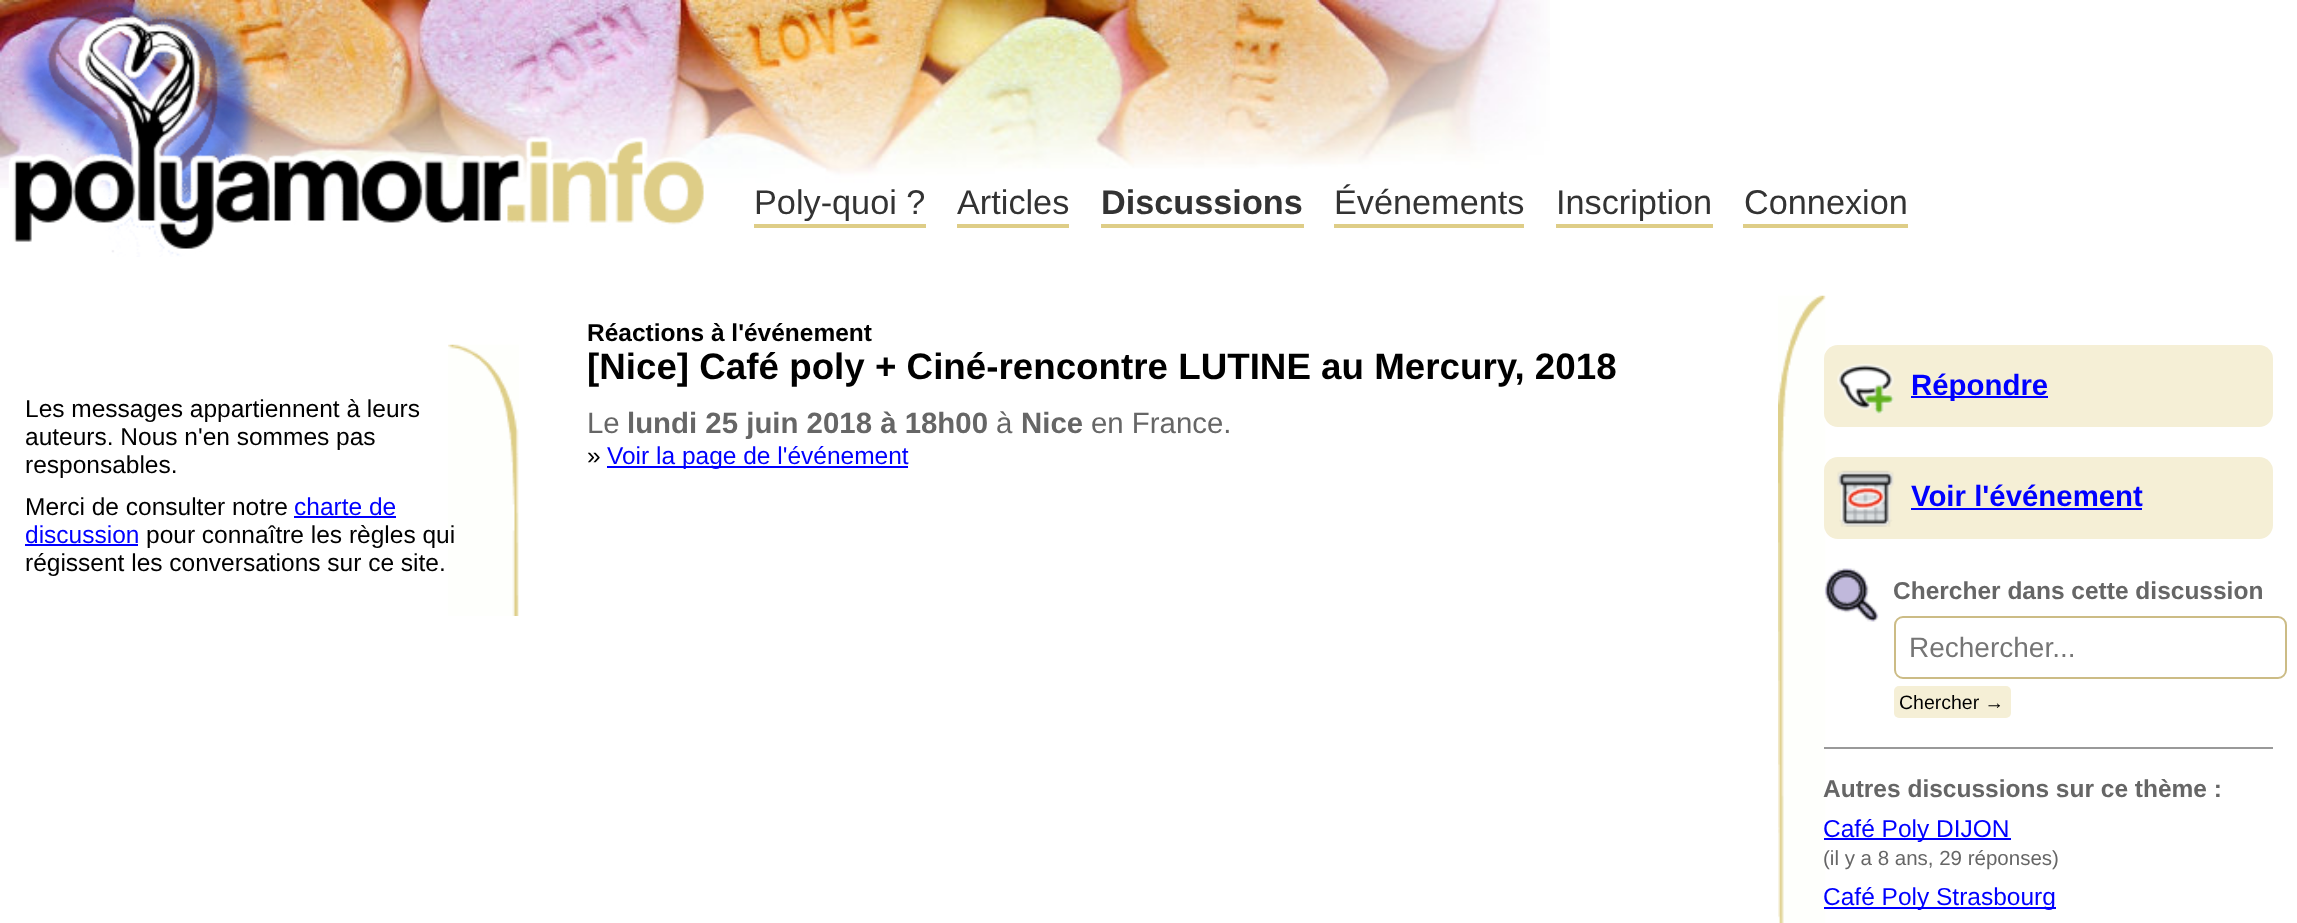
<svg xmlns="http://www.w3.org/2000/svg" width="2297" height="923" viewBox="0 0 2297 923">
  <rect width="100%" height="100%" fill="#fff"/>
  <image x="0" y="0" width="1550" height="188" href="img/1.png"/>
  <image x="8" y="0" width="696" height="257" href="img/2.png"/>
  <path d="M754 224h172v4H754z" fill="#decd87"/>
  <path d="M957 224h112v4H957z" fill="#decd87"/>
  <path d="M1101 224h203v4H1101z" fill="#decd87"/>
  <path d="M1334 224h190v4H1334z" fill="#decd87"/>
  <path d="M1556 224h157v4H1556z" fill="#decd87"/>
  <path d="M1743 224h165v4H1743z" fill="#decd87"/>
  <image x="448" y="344" width="71" height="272" href="img/3.png"/>
  <path d="M294 516h102v2H294z" fill="#00f"/>
  <path d="M25 544h113v2H25z" fill="#00f"/>
  <path d="M607 466h301v2H607z" fill="#00f"/>
  <image x="1778" y="295" width="48" height="628" href="img/4.png"/>
  <rect x="1824" y="345" width="449" height="82" rx="14" fill="#f5efd6"/>
  <image x="1837" y="363" width="57" height="52" href="img/5.png"/>
  <path d="M1911 396h137v2H1911z" fill="#00f"/>
  <rect x="1824" y="457" width="449" height="82" rx="14" fill="#f5efd6"/>
  <image x="1837" y="470" width="57" height="57" href="img/6.png"/>
  <path d="M1911 508h231v2H1911z" fill="#00f"/>
  <image x="1824" y="568" width="55" height="54" href="img/7.png"/>
  <path d="M1824 747h449v2H1824z" fill="#999"/>
  <rect x="1895" y="617" width="391" height="61" rx="8" fill="none" stroke="#ccbc86" stroke-width="2"/>
  <rect x="1894" y="686" width="117" height="32" rx="5" fill="#f5efd6"/>
  <path d="M1824 838h187v2H1824z" fill="#00f"/>
  <path d="M1824 907h232v2H1824z" fill="#00f"/>
  <g font-family="Liberation Sans" font-size="34.25" fill="#333">
    <text x="754" y="214">Poly-quoi ?</text>
    <text x="957" y="214">Articles</text>
  </g>
  <text x="1101" y="214" font-family="Liberation Sans" font-size="34.25" font-weight="bold" fill="#333">Discussions</text>
  <g font-family="Liberation Sans" font-size="34.25" fill="#333">
    <text x="1334" y="214">Événements</text>
    <text x="1556" y="214">Inscription</text>
    <text x="1744" y="214">Connexion</text>
  </g>
  <g font-family="Liberation Sans" font-size="24.5" fill="#000">
    <text x="25" y="417">Les messages appartiennent à leurs</text>
    <text x="25" y="445">auteurs. Nous n'en sommes pas</text>
    <text x="25" y="473">responsables.</text>
    <text x="25" y="515">Merci de consulter notre</text>
  </g>
  <g font-family="Liberation Sans" font-size="24.5" fill="#00f">
    <text x="294" y="515">charte de</text>
    <text x="25" y="543">discussion</text>
  </g>
  <g font-family="Liberation Sans" font-size="24.5" fill="#000">
    <text x="146" y="543">pour connaître les règles qui</text>
    <text x="25" y="571">régissent les conversations sur ce site.</text>
  </g>
  <text x="587" y="341" font-family="Liberation Sans" font-size="24.5" font-weight="bold" fill="#000">Réactions à l'événement</text>
  <text x="587" y="379" font-family="Liberation Sans" font-size="36.75" font-weight="bold" fill="#000">[Nice] Café poly + Ciné-rencontre LUTINE au Mercury, 2018</text>
  <text x="587" y="433" font-family="Liberation Sans" font-size="29.4" fill="#666">Le</text>
  <text x="627" y="433" font-family="Liberation Sans" font-size="29.4" font-weight="bold" fill="#666">lundi 25 juin 2018 à 18h00</text>
  <text x="996" y="433" font-family="Liberation Sans" font-size="29.4" fill="#666">à</text>
  <text x="1021" y="433" font-family="Liberation Sans" font-size="29.4" font-weight="bold" fill="#666">Nice</text>
  <text x="1091" y="433" font-family="Liberation Sans" font-size="29.4" fill="#666">en France.</text>
  <text x="587" y="464" font-family="Liberation Sans" font-size="24.5" fill="#000">»</text>
  <text x="607" y="464" font-family="Liberation Sans" font-size="24.5" fill="#00f">Voir la page de l'événement</text>
  <g font-family="Liberation Sans" font-size="29.4" font-weight="bold" fill="#00f">
    <text x="1911" y="395">Répondre</text>
    <text x="1911" y="506">Voir l'événement</text>
  </g>
  <text x="1893" y="599" font-family="Liberation Sans" font-size="24.5" font-weight="bold" fill="#666">Chercher dans cette discussion</text>
  <text x="1909" y="657" font-family="Liberation Sans" font-size="28" fill="#757575">Rechercher...</text>
  <text x="1899" y="709" font-family="Liberation Sans" font-size="19.5" fill="#000">Chercher →</text>
  <text x="1823" y="797" font-family="Liberation Sans" font-size="24.5" font-weight="bold" fill="#666">Autres discussions sur ce thème :</text>
  <text x="1823" y="837" font-family="Liberation Sans" font-size="24.5" fill="#00f">Café Poly DIJON</text>
  <text x="1823" y="865" font-family="Liberation Sans" font-size="20.5" fill="#666">(il y a 8 ans, 29 réponses)</text>
  <text x="1823" y="905" font-family="Liberation Sans" font-size="24.5" fill="#00f">Café Poly Strasbourg</text>
</svg>
